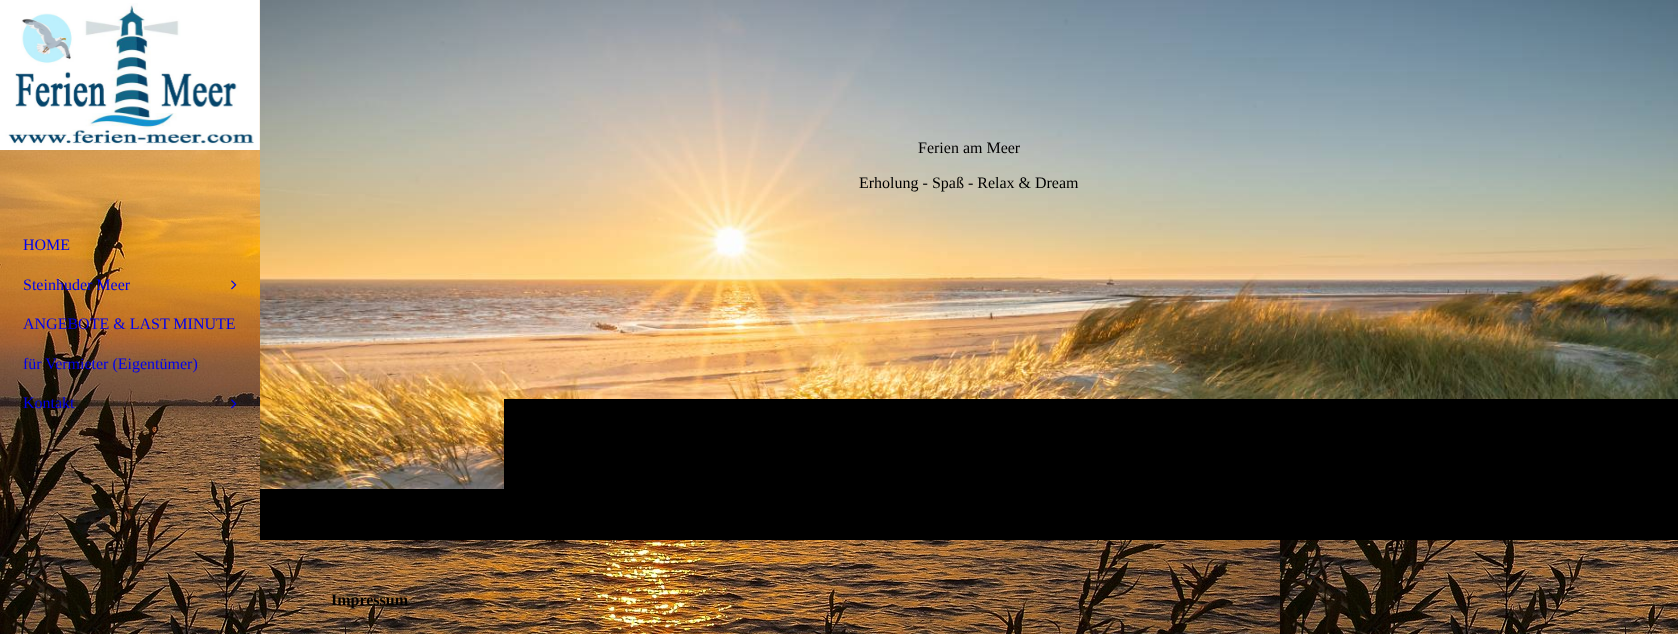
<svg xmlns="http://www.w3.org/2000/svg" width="1678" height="634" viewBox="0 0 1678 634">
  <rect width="100%" height="100%" fill="#fff"/>
  <image x="0" y="0" width="1678" height="634" href="img/1.png"/>
  <image x="0" y="0" width="260" height="150" href="img/2.png"/>
  <image x="231" y="280" width="6" height="10" href="img/3.png"/>
  <image x="231" y="399" width="6" height="10" href="img/4.png"/>
  <image x="260" y="0" width="1418" height="489" href="img/5.png"/>
  <path d="M260 489h244v51H260z" fill="#000"/>
  <path d="M504 399h1174v141H504z" fill="#000"/>
  <g font-family="Liberation Serif" font-size="16" fill="#00e">
    <text x="23" y="250">HOME</text>
    <text x="23" y="290">Steinhuder Meer</text>
    <text x="23" y="329">ANGEBOTE &amp; LAST MINUTE</text>
    <text x="23" y="369">für Vermieter (Eigentümer)</text>
    <text x="23" y="408">Kontakt</text>
  </g>
  <g font-family="Liberation Serif" font-size="16" fill="#000">
    <text x="918" y="153">Ferien am Meer</text>
    <text x="859" y="188">Erholung - Spaß - Relax &amp; Dream</text>
  </g>
  <text x="331" y="605" font-family="Liberation Serif" font-size="16" font-weight="bold" fill="#000">Impressum</text>
</svg>
